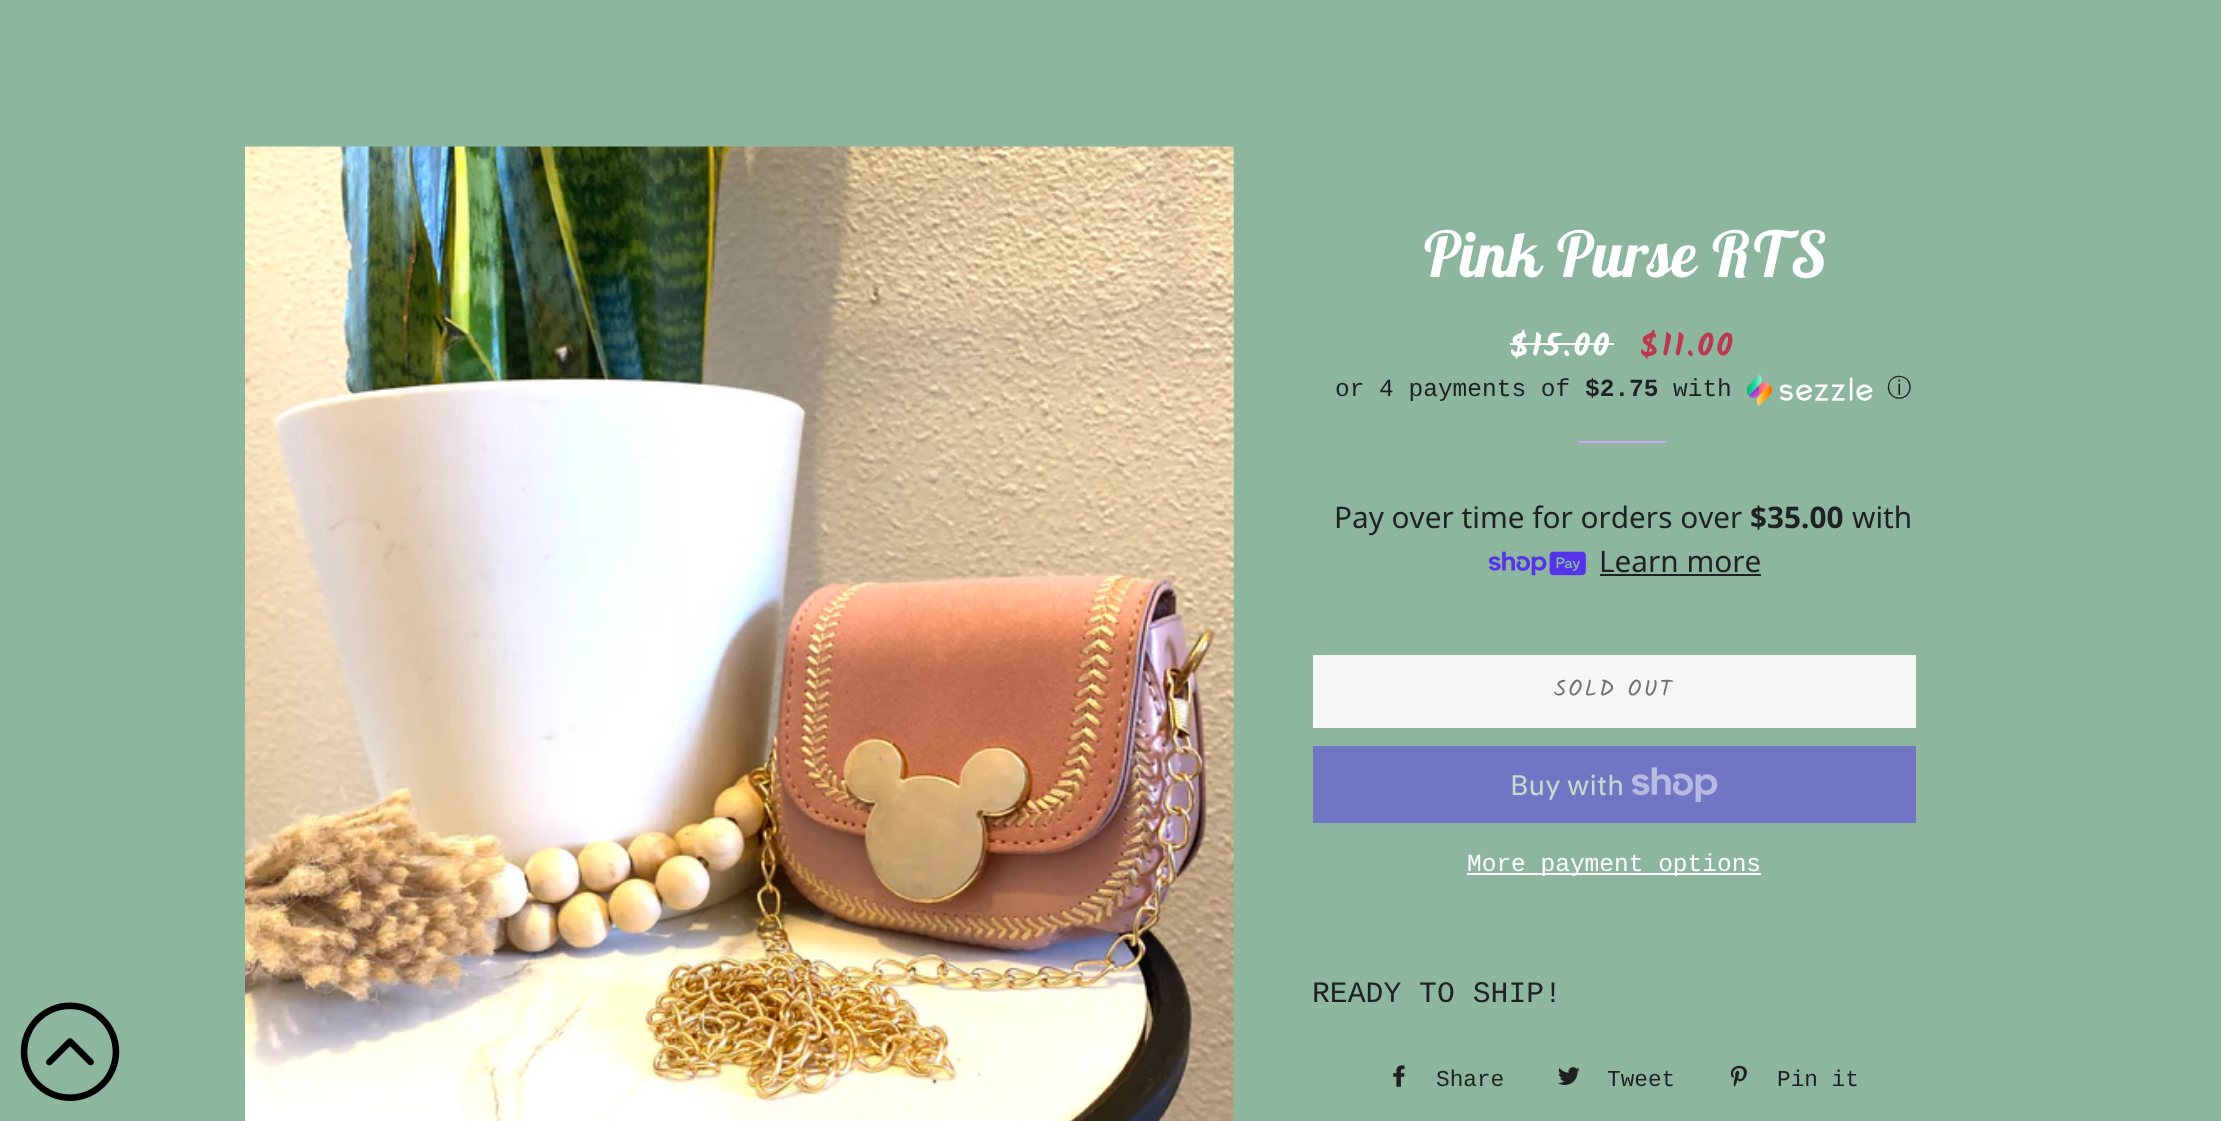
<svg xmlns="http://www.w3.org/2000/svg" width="2221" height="1121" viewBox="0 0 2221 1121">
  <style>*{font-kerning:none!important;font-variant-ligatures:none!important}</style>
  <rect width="100%" height="100%" fill="#8cb69d"/>
  <image x="20" y="1002" width="100" height="99" href="img/1.png"/>
  <image x="245" y="146" width="989" height="975" href="img/2.png"/>
  <path d="M1510 343h104v2H1510z" fill="#fff"/>
  <image x="1747" y="375" width="126" height="31" href="img/3.png"/>
  <path d="M1579 441h87v2H1579z" fill="#c9a3ff"/>
  <image x="1488" y="551" width="98" height="25" href="img/4.png"/>
  <path d="M1600 574h161v2H1600z" fill="#1f2021"/>
  <path d="M1313 655h603v73H1313z" fill="#f6f6f6"/>
  <path d="M1313 746h603v77H1313z" fill="#7075c4"/>
  <image x="1632" y="767" width="86" height="35" href="img/5.png"/>
  <path d="M1467 873h294v2H1467z" fill="#fff"/>
  <image x="1393" y="1065" width="12" height="22" href="img/6.png"/>
  <image x="1558" y="1067" width="22" height="18" href="img/7.png"/>
  <image x="1730" y="1065" width="17" height="22" href="img/8.png"/>
  <text x="1421" y="277" font-family="Lobster Two" font-size="63" font-weight="bold" font-style="italic" fill="#fff">Pink Purse RTS</text>
  <text x="1510" y="356" font-family="Kalam" font-size="31.5" font-weight="bold" letter-spacing="3" fill="#fff">$15.00</text>
  <text x="1640" y="356" font-family="Kalam" font-size="31.5" font-weight="bold" letter-spacing="3" fill="#bd374f">$11.00</text>
  <text x="1335" y="396" font-family="Liberation Mono" font-size="24.5" fill="#1f2021">or 4 payments of</text>
  <text x="1585" y="396" font-family="Liberation Mono" font-size="24.5" font-weight="bold" fill="#1f2021">$2.75</text>
  <text x="1673" y="396" font-family="Liberation Mono" font-size="24.5" fill="#1f2021">with</text>
  <text x="1887" y="396" font-family="WenQuanYi Zen Hei" font-size="24.5" font-weight="500" fill="#1f2021">ⓘ</text>
  <text x="1334" y="528" font-family="Noto Sans" font-size="29.75" fill="#1f2021">Pay over time for orders over</text>
  <text x="1750" y="528" font-family="Noto Sans" font-size="29.75" font-weight="bold" fill="#1f2021">$35.00</text>
  <g font-family="Noto Sans" font-size="29.75" fill="#1f2021">
    <text x="1852" y="528">with</text>
    <text x="1599" y="572">Learn more</text>
  </g>
  <text x="1554" y="696" font-family="Kalam" font-size="22.75" letter-spacing="2.25" fill="#717171">SOLD OUT</text>
  <text x="1510" y="795" font-family="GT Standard" font-size="28" fill="#c6dbce">Buy with</text>
  <text x="1467" y="871" font-family="Liberation Mono" font-size="24.5" fill="#fff">More payment options</text>
  <text x="1312" y="1002" font-family="Liberation Mono" font-size="29.75" fill="#1f2021">READY TO SHIP!</text>
  <g font-family="Liberation Mono" font-size="22.75" fill="#1f2021">
    <text x="1436" y="1086">Share</text>
    <text x="1607" y="1086">Tweet</text>
    <text x="1777" y="1086">Pin it</text>
  </g>
</svg>
